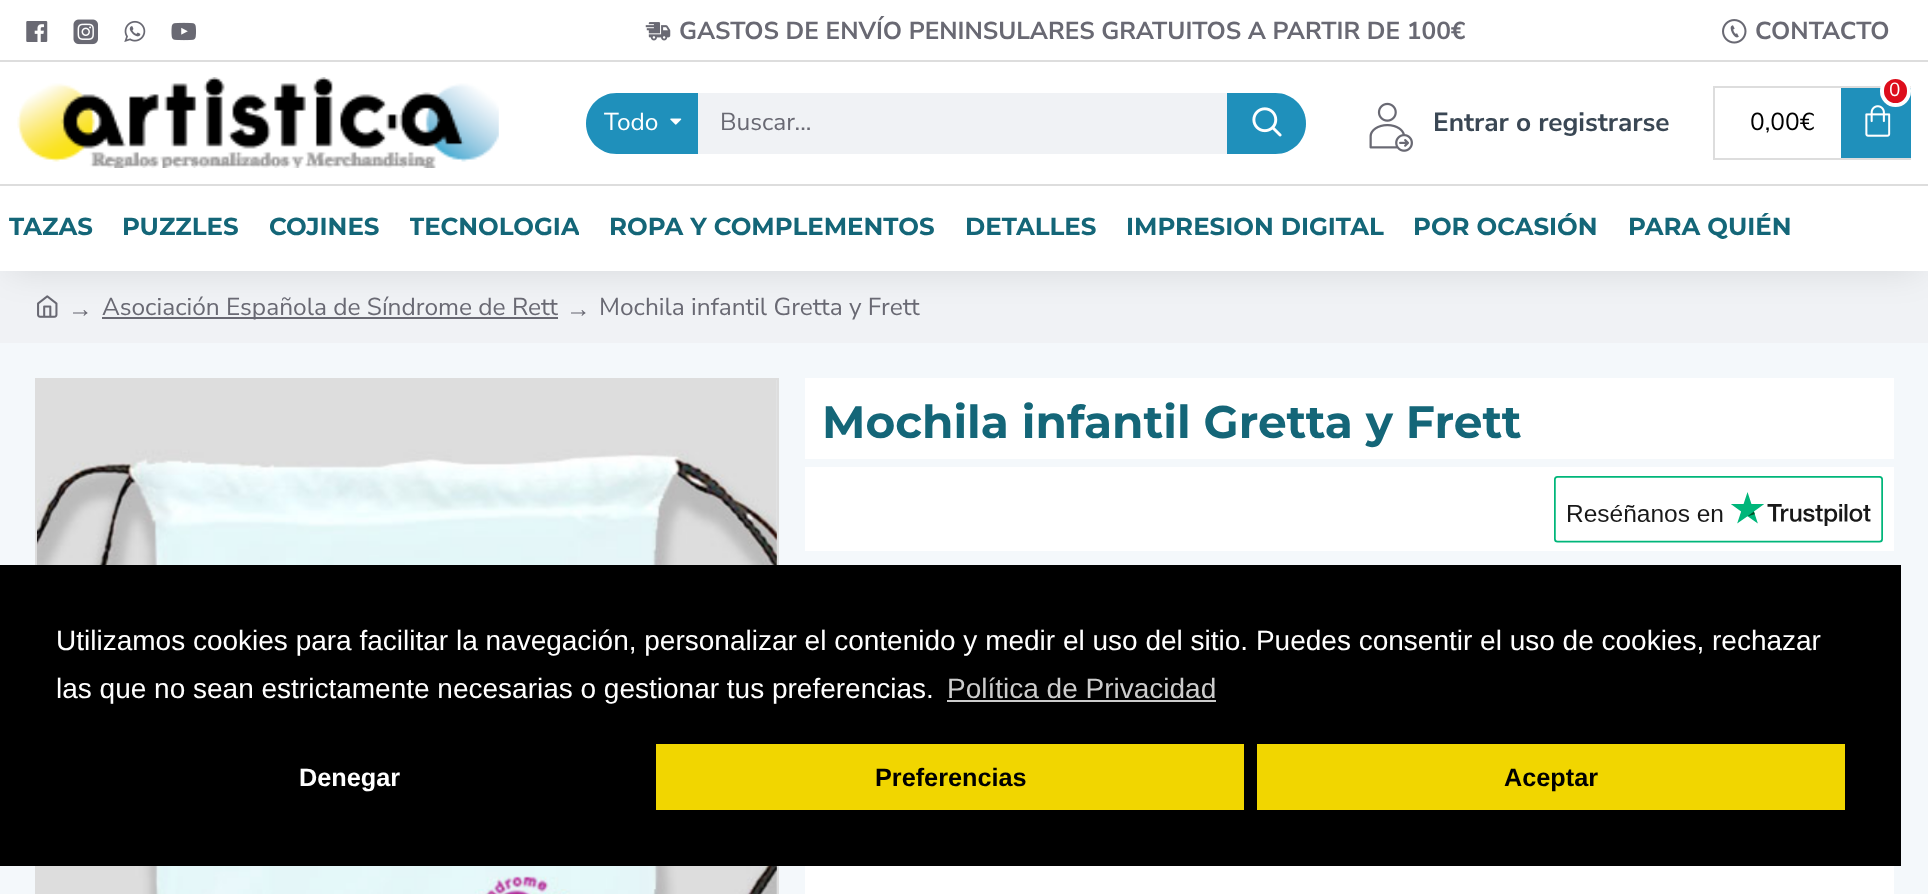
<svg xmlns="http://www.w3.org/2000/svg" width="1928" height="894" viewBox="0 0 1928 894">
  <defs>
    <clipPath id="clip1"><path d="M9 210h84v37H9z"/></clipPath>
    <clipPath id="clip2"><path d="M270 210h110v37H270z"/></clipPath>
    <clipPath id="clip3"><path d="M410 210h169v37H410z"/></clipPath>
  </defs>
  <rect width="100%" height="100%" fill="#f4f8fb"/>
  <path d="M0 271h1928v72H0z" fill="#f0f2f5"/>
  <image x="37" y="295" width="21" height="23" href="img/12.png"/>
  <path d="M102 317h456v2H102z" fill="#696973"/>
  <path d="M9 18h1911v253H9z" fill="#0000001a" filter="blur(17.5px)"/>
  <path d="M0 0h1928v271H0z" fill="#fff"/>
  <image x="26" y="21" width="22" height="21" href="img/1.png"/>
  <image x="73" y="19" width="25" height="26" href="img/2.png"/>
  <image x="124" y="20" width="22" height="22" href="img/3.png"/>
  <image x="171" y="22" width="25" height="19" href="img/4.png"/>
  <image x="645" y="22" width="26" height="19" href="img/5.png"/>
  <image x="1722" y="19" width="25" height="25" href="img/6.png"/>
  <image x="17" y="77" width="482" height="91" href="img/7.png"/>
  <path d="M616.5 93H698V154H616.5C599.5 154 586 140.5 586 123.5C586 106.5 599.5 93 616.5 93Z" fill="#1f90bb"/>
  <image x="670" y="118" width="12" height="7" href="img/8.png"/>
  <path d="M698 93h529v61H698z" fill="#f0f2f5"/>
  <path d="M1227 93H1275.5C1292.5 93 1306 106.5 1306 123.5C1306 140.5 1292.5 154 1275.5 154H1227Z" fill="#1f90bb"/>
  <image x="1252" y="107" width="30" height="30" href="img/9.png"/>
  <image x="1369" y="102" width="44" height="50" href="img/10.png"/>
  <path d="M1713 86h198v2H1713z" fill="#ddd"/>
  <path d="M1713 158h198v2H1713z" fill="#ddd"/>
  <path d="M1713 86h2v73H1713z" fill="#ddd"/>
  <path d="M1841 88h70v70H1841z" fill="#1f90bb"/>
  <image x="1865" y="105" width="26" height="32" href="img/11.png"/>
  <rect x="1882" y="77" width="27" height="28" rx="13.5" fill="#dd0e1c" stroke="#fff" stroke-width="4"/>
  <path d="M0 184h1928v2H0z" fill="#ddd"/>
  <path d="M0 60h1928v2H0z" fill="#ddd"/>
  <path d="M36 379h742v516H36z" fill="none" stroke="#ddd" stroke-width="2"/>
  <image x="37" y="380" width="740" height="514" href="img/13.png"/>
  <path d="M805 378h1089v516H805z" fill="#fff"/>
  <path d="M805 459h1089v8H805z" fill="#f4f8fb"/>
  <path d="M805 551h1089v14H805z" fill="#f4f8fb"/>
  <image x="1554" y="476" width="329" height="67" href="img/14.png"/>
  <path d="M0 565h1901v301H0z" fill="#000"/>
  <path d="M947 700h269v2H947z" fill="#ccc"/>
  <path d="M656 744h588v66H656z" fill="#f1d600"/>
  <path d="M1257 744h588v66H1257z" fill="#f1d600"/>
  <g font-family="Nunito Sans" font-size="24.5" font-weight="bold" fill="#696973">
    <text x="679" y="39">GASTOS DE ENVÍO PENINSULARES GRATUITOS A PARTIR DE 100€</text>
    <text x="1755" y="39">CONTACTO</text>
  </g>
  <text x="604" y="130" font-family="Nunito Sans" font-size="24.5" fill="#fff">Todo</text>
  <text x="720" y="130" font-family="Nunito Sans" font-size="24.5" fill="#696973">Buscar...</text>
  <text x="1433" y="131" font-family="Nunito Sans" font-size="26.25" font-weight="bold" fill="#3a4754">Entrar o registrarse</text>
  <text x="1889" y="96" font-family="Nunito Sans" font-size="19" fill="#fff">0</text>
  <text x="1750" y="130" font-family="Nunito Sans" font-size="24.5" fill="#000">0,00€</text>
  <g clip-path="url(#clip1)">
    <text x="9" y="235" font-family="Montserrat" font-size="24.5" font-weight="bold" fill="#146678">TAZAS</text>
  </g>
  <text x="122" y="235" font-family="Montserrat" font-size="24.5" font-weight="bold" fill="#146678">PUZZLES</text>
  <g clip-path="url(#clip2)">
    <text x="269" y="235" font-family="Montserrat" font-size="24.5" font-weight="bold" fill="#146678">COJINES</text>
  </g>
  <g clip-path="url(#clip3)">
    <text x="409" y="235" font-family="Montserrat" font-size="24.5" font-weight="bold" fill="#146678">TECNOLOGIA</text>
  </g>
  <g font-family="Montserrat" font-size="24.5" font-weight="bold" fill="#146678">
    <text x="609" y="235">ROPA Y COMPLEMENTOS</text>
    <text x="965" y="235">DETALLES</text>
    <text x="1126" y="235">IMPRESION DIGITAL</text>
    <text x="1413" y="235">POR OCASIÓN</text>
    <text x="1628" y="235">PARA QUIÉN</text>
  </g>
  <text x="68" y="317" font-family="Liberation Serif" font-size="24.5" fill="#696973">→</text>
  <text x="102" y="315" font-family="Nunito Sans" font-size="24.5" fill="#696973">Asociación Española de Síndrome de Rett</text>
  <text x="566" y="317" font-family="Liberation Serif" font-size="24.5" fill="#696973">→</text>
  <text x="599" y="315" font-family="Nunito Sans" font-size="24.5" fill="#696973">Mochila infantil Gretta y Frett</text>
  <text x="822" y="438" font-family="Montserrat" font-size="45.5" font-weight="bold" fill="#146678">Mochila infantil Gretta y Frett</text>
  <g font-family="Liberation Sans" font-size="28" fill="#fff">
    <text x="56" y="650">Utilizamos cookies para facilitar la navegación, personalizar el contenido y medir el uso del sitio. Puedes consentir el uso de cookies, rechazar</text>
    <text x="56" y="698">las que no sean estrictamente necesarias o gestionar tus preferencias.</text>
  </g>
  <text x="947" y="698" font-family="Liberation Sans" font-size="28" fill="#ccc">Política de Privacidad</text>
  <text x="299" y="786" font-family="Liberation Sans" font-size="25.25" font-weight="bold" fill="#fff">Denegar</text>
  <g font-family="Liberation Sans" font-size="25.25" font-weight="bold" fill="#000">
    <text x="875" y="786">Preferencias</text>
    <text x="1504" y="786">Aceptar</text>
  </g>
</svg>
